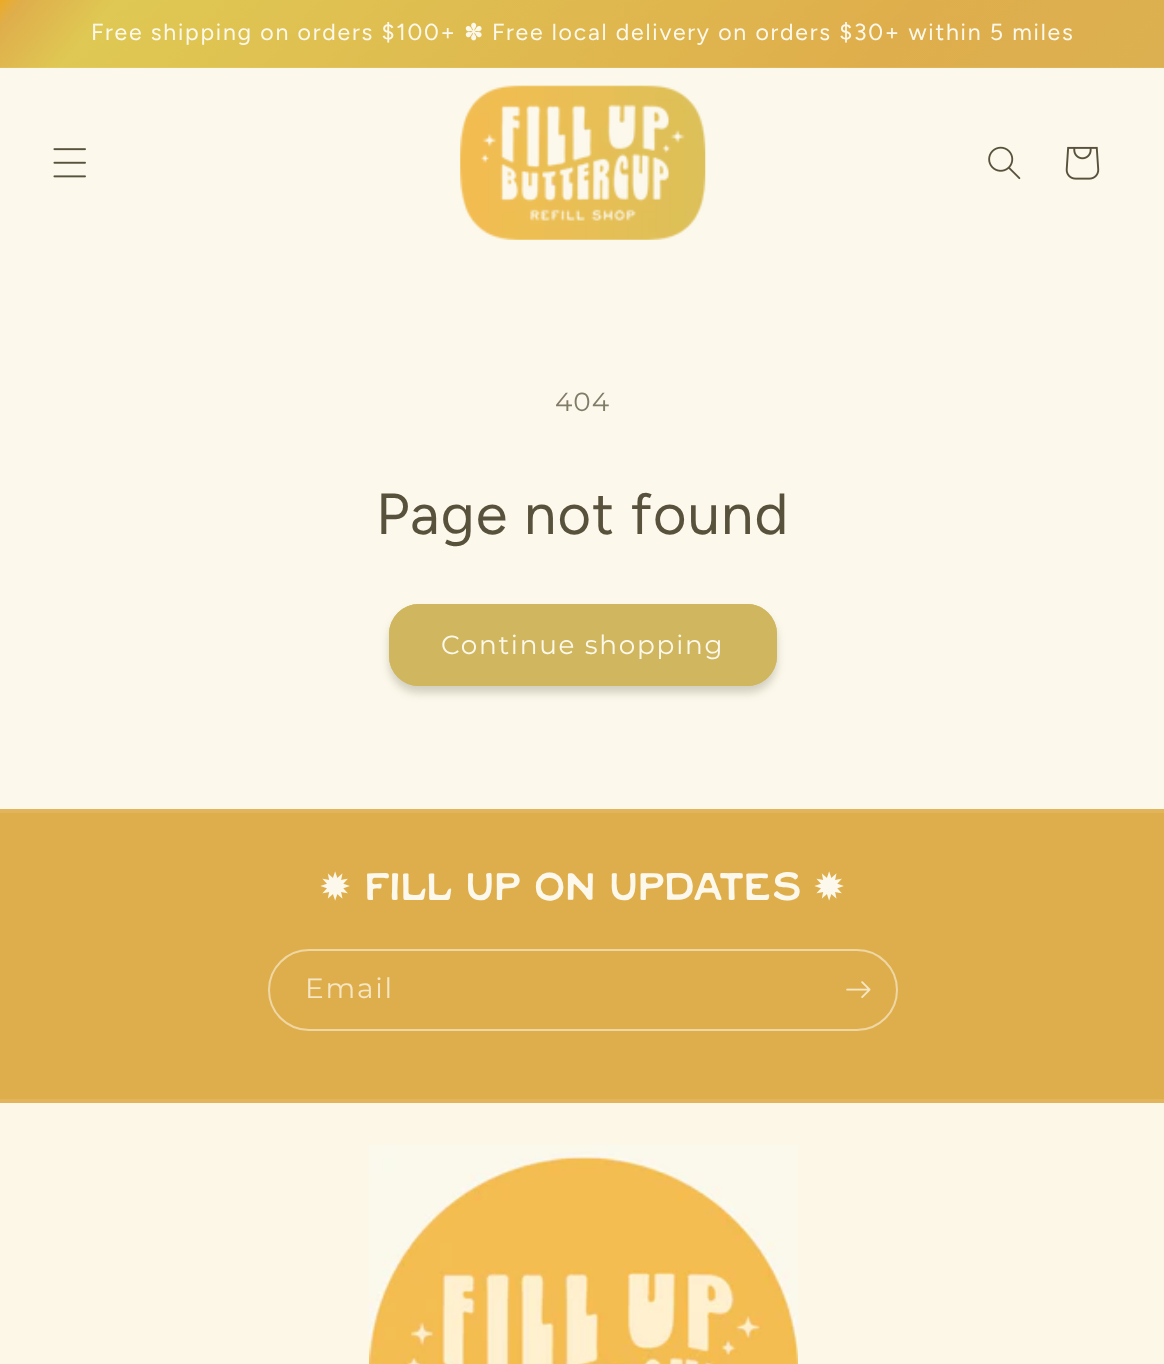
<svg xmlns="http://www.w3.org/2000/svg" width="1164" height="1364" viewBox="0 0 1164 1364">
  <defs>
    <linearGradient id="g1" gradientUnits="userSpaceOnUse" x1="-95" y1="114" x2="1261" y2="1251"><stop offset="0" stop-color="#ecab26"/><stop offset="0.01" stop-color="#dfae4c"/><stop offset="0.05" stop-color="#dfc853"/><stop offset="0.4" stop-color="#dfae4c"/><stop offset="1" stop-color="#d0b75f"/></linearGradient>
    <linearGradient id="g2" gradientUnits="userSpaceOnUse" x1="-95" y1="114" x2="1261" y2="1251"><stop offset="0" stop-color="#edb136"/><stop offset="0.01" stop-color="#e1b459"/><stop offset="0.05" stop-color="#e1cc5f"/><stop offset="0.4" stop-color="#e1b459"/><stop offset="1" stop-color="#d4bc6a"/></linearGradient>
  </defs>
  <rect width="100%" height="100%" fill="#fcf9ec"/>
  <path d="M0 0h1164v67H0z" fill="url(#g1)"/>
  <path d="M0 67h1164v1H0z" fill="url(#g2)"/>
  <image x="53" y="148" width="33" height="30" href="img/1.png"/>
  <image x="460" y="85" width="246" height="155" href="img/2.png"/>
  <image x="988" y="146" width="33" height="34" href="img/3.png"/>
  <image x="1065" y="146" width="35" height="34" href="img/4.png"/>
  <rect x="389" y="611" width="388" height="82" rx="30" fill="#58523c40" filter="blur(4.5px)"/>
  <rect x="389" y="604" width="388" height="82" rx="30" fill="#d0b75f"/>
  <rect x="390" y="605" width="386" height="80" rx="29" fill="none" stroke="#d0b75f" stroke-width="2"/>
  <path d="M0 813h1164v286H0z" fill="#dfae4c"/>
  <path d="M0 809h1164v4H0z" fill="#e2b55c"/>
  <path d="M0 1099h1164v4H0z" fill="#e2b55c"/>
  <rect x="269" y="950" width="628" height="80" rx="40" fill="none" stroke="#efd7a4" stroke-width="2"/>
  <image x="846" y="981" width="25" height="17" href="img/5.png"/>
  <path d="M0 1103h1164v261H0z" fill="#fdf7e7"/>
  <image x="369" y="1145" width="429" height="219" href="img/6.png"/>
  <text x="91" y="40" font-family="Figtree" font-size="23.1" letter-spacing="1.75" fill="#fcf9ec">Free shipping on orders $100+</text>
  <text x="464" y="40" font-family="DejaVu Sans" font-size="23.1" letter-spacing="1.75" fill="#fcf9ec">✽</text>
  <text x="492" y="40" font-family="Figtree" font-size="23.1" letter-spacing="1.75" fill="#fcf9ec">Free local delivery on orders $30+ within 5 miles</text>
  <text x="555" y="411" font-family="Montserrat" font-size="26.25" letter-spacing="1" fill="#817c68">404</text>
  <text x="376" y="534" font-family="Figtree" font-size="57.75" letter-spacing="1.2" fill="#58523c">Page not found</text>
  <text x="441" y="654" font-family="Montserrat" font-size="26.25" letter-spacing="1.75" fill="#fcf9ec">Continue shopping</text>
  <text x="319" y="900" font-family="DejaVu Sans" font-size="38.5" letter-spacing="1.2" fill="#fcf9ec">✹</text>
  <text x="364" y="900" font-family="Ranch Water" font-size="38.5" letter-spacing="1.2" fill="#fcf9ec">FILL UP ON UPDATES</text>
  <text x="813" y="900" font-family="DejaVu Sans" font-size="38.5" letter-spacing="1.2" fill="#fcf9ec">✹</text>
  <text x="305" y="998" font-family="Montserrat" font-size="28" letter-spacing="1.75" fill="#f5e6c4">Email</text>
</svg>
